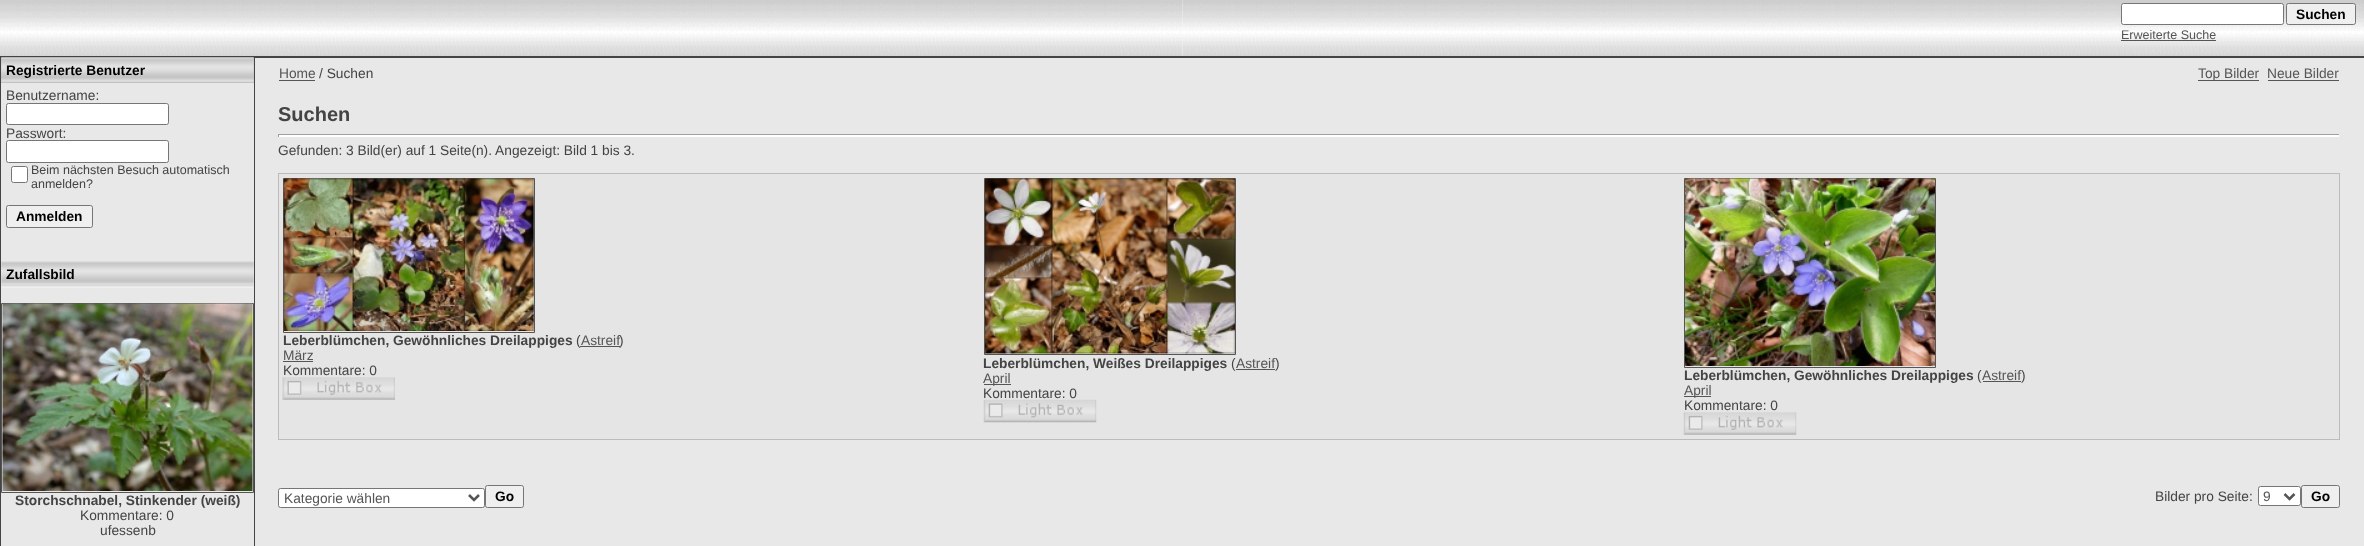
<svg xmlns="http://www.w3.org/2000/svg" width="2364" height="546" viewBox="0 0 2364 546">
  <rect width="100%" height="100%" fill="#fff"/>
  <image x="0" y="0" width="1183" height="56" href="img/1.png"/>
  <image x="1182" y="0" width="1182" height="56" href="img/2.png"/>
  <rect x="2121.5" y="3.5" width="162" height="21" rx="2" fill="#fff" stroke="#767676"/>
  <rect x="2286.5" y="3.5" width="69" height="21" rx="2" fill="#efefef" stroke="#767676"/>
  <path d="M2121 40h95v1H2121z" fill="#555"/>
  <path d="M0 56h2364v490H0z" fill="#444"/>
  <path d="M255 58h2109v488H255z" fill="#e8e8e8"/>
  <path d="M1 261h253v27H1z" fill="#efefef"/>
  <path d="M1 58h253v25H1z" fill="#bbb"/>
  <image x="1" y="57" width="253" height="26" href="img/3.png"/>
  <path d="M1 83h253v178H1z" fill="#e8e8e8"/>
  <rect x="6.5" y="103.5" width="162" height="21" rx="2" fill="#fff" stroke="#767676"/>
  <rect x="6.5" y="140.5" width="162" height="22" rx="2" fill="#fff" stroke="#767676"/>
  <rect x="11.5" y="166.5" width="16" height="16" rx="2" fill="#fff" stroke="#767676"/>
  <rect x="6.5" y="205.5" width="86" height="22" rx="2" fill="#efefef" stroke="#767676"/>
  <image x="1" y="261" width="253" height="25" href="img/4.png"/>
  <path d="M1 286h253v1H1z" fill="#e8e8e8"/>
  <path d="M1 288h253v258H1z" fill="#e8e8e8"/>
  <path d="M1.5 303.5h252v189H1.5z" fill="none" stroke="#555"/>
  <image x="2" y="303" width="251" height="188" href="img/5.png"/>
  <path d="M279 80h36v1H279z" fill="#555"/>
  <path d="M2198 80h61v1H2198z" fill="#555"/>
  <path d="M2268 80h71v1H2268z" fill="#555"/>
  <path d="M278 135h2062v2H278z" fill="#fff"/>
  <path d="M278 134h2062v1H278z" fill="#9f9f9f"/>
  <path d="M2339 134h1v3H2339z" fill="#eee"/>
  <path d="M278 134h1v3H278z" fill="#9f9f9f"/>
  <path d="M278 173h2062v267H278z" fill="#bbb"/>
  <path d="M279 174h2060v265H279z" fill="#e5e5e5"/>
  <path d="M283.5 178.5h251v154H283.5z" fill="none" stroke="#555"/>
  <image x="283" y="178" width="251" height="153" href="img/6.png"/>
  <path d="M283 361h30v1H283z" fill="#555"/>
  <image x="282" y="377" width="113" height="23" href="img/7.png"/>
  <path d="M984.5 178.5h251v176H984.5z" fill="none" stroke="#555"/>
  <image x="985" y="178" width="250" height="176" href="img/8.png"/>
  <path d="M1236 369h39v1H1236z" fill="#555"/>
  <path d="M984 384h27v1H984z" fill="#555"/>
  <image x="983" y="399" width="114" height="24" href="img/9.png"/>
  <path d="M1684.5 178.5h251v189H1684.5z" fill="none" stroke="#555"/>
  <image x="1685" y="178" width="250" height="188" href="img/10.png"/>
  <path d="M1983 381h38v1H1983z" fill="#555"/>
  <path d="M1684 396h27v1H1684z" fill="#555"/>
  <image x="1683" y="412" width="114" height="23" href="img/11.png"/>
  <rect x="278.5" y="488.5" width="206" height="19" rx="2" fill="#fff" stroke="#767676"/>
  <path d="M469 495L474 500L479 495" fill="none" stroke="#555" stroke-width="2.5"/>
  <rect x="485.5" y="485.5" width="38" height="22" rx="2" fill="#efefef" stroke="#767676"/>
  <rect x="2258.5" y="486.5" width="42" height="19" rx="2" fill="#fff" stroke="#767676"/>
  <path d="M2284.5 494L2289.5 499L2294.5 494" fill="none" stroke="#555" stroke-width="2.5"/>
  <rect x="2301.5" y="485.5" width="38" height="22" rx="2" fill="#efefef" stroke="#767676"/>
  <text x="2296" y="19" font-family="Liberation Sans" font-size="13.75" font-weight="bold" fill="#000">Suchen</text>
  <text x="2121" y="39" font-family="Liberation Sans" font-size="12.5" fill="#555">Erweiterte Suche</text>
  <text x="6" y="75" font-family="Liberation Sans" font-size="13.75" font-weight="bold" fill="#000">Registrierte Benutzer</text>
  <g font-family="Liberation Sans" font-size="13.75" fill="#444">
    <text x="6" y="100">Benutzername:</text>
    <text x="6" y="138">Passwort:</text>
  </g>
  <g font-family="Liberation Sans" font-size="12.5" fill="#444">
    <text x="31" y="174">Beim nächsten Besuch automatisch</text>
    <text x="31" y="188">anmelden?</text>
  </g>
  <g font-family="Liberation Sans" font-size="13.75" font-weight="bold" fill="#000">
    <text x="16" y="221">Anmelden</text>
    <text x="6" y="279">Zufallsbild</text>
  </g>
  <text x="15" y="505" font-family="Liberation Sans" font-size="13.75" font-weight="bold" fill="#444">Storchschnabel, Stinkender (weiß)</text>
  <g font-family="Liberation Sans" font-size="13.75" fill="#444">
    <text x="80" y="520">Kommentare: 0</text>
    <text x="100" y="535">ufessenb</text>
  </g>
  <text x="279" y="78" font-family="Liberation Sans" font-size="13.75" fill="#555">Home</text>
  <text x="319" y="78" font-family="Liberation Sans" font-size="13.75" fill="#444">/ Suchen</text>
  <g font-family="Liberation Sans" font-size="13.75" fill="#555">
    <text x="2198" y="78">Top Bilder</text>
    <text x="2267" y="78">Neue Bilder</text>
  </g>
  <text x="278" y="121" font-family="Liberation Sans" font-size="20" font-weight="bold" fill="#444">Suchen</text>
  <text x="278" y="155" font-family="Liberation Sans" font-size="13.75" fill="#444">Gefunden: 3 Bild(er) auf 1 Seite(n). Angezeigt: Bild 1 bis 3.</text>
  <text x="283" y="345" font-family="Liberation Sans" font-size="13.75" font-weight="bold" fill="#444">Leberblümchen, Gewöhnliches Dreilappiges</text>
  <text x="576" y="345" font-family="Liberation Sans" font-size="13.75" fill="#444">(</text>
  <text x="581" y="345" font-family="Liberation Sans" font-size="13.75" fill="#555">Astreif</text>
  <path d="M580 346h40v1H580z" fill="#555"/>
  <text x="619" y="345" font-family="Liberation Sans" font-size="13.75" fill="#444">)</text>
  <text x="283" y="360" font-family="Liberation Sans" font-size="13.75" fill="#555">März</text>
  <text x="283" y="375" font-family="Liberation Sans" font-size="13.75" fill="#444">Kommentare: 0</text>
  <text x="983" y="368" font-family="Liberation Sans" font-size="13.75" font-weight="bold" fill="#444">Leberblümchen, Weißes Dreilappiges</text>
  <text x="1231" y="368" font-family="Liberation Sans" font-size="13.75" fill="#444">(</text>
  <text x="1236" y="368" font-family="Liberation Sans" font-size="13.75" fill="#555">Astreif</text>
  <text x="1275" y="368" font-family="Liberation Sans" font-size="13.75" fill="#444">)</text>
  <text x="983" y="383" font-family="Liberation Sans" font-size="13.75" fill="#555">April</text>
  <text x="983" y="398" font-family="Liberation Sans" font-size="13.75" fill="#444">Kommentare: 0</text>
  <text x="1684" y="380" font-family="Liberation Sans" font-size="13.75" font-weight="bold" fill="#444">Leberblümchen, Gewöhnliches Dreilappiges</text>
  <text x="1977" y="380" font-family="Liberation Sans" font-size="13.75" fill="#444">(</text>
  <text x="1982" y="380" font-family="Liberation Sans" font-size="13.75" fill="#555">Astreif</text>
  <text x="2021" y="380" font-family="Liberation Sans" font-size="13.75" fill="#444">)</text>
  <text x="1684" y="395" font-family="Liberation Sans" font-size="13.75" fill="#555">April</text>
  <text x="1684" y="410" font-family="Liberation Sans" font-size="13.75" fill="#444">Kommentare: 0</text>
  <text x="284" y="503" font-family="Liberation Sans" font-size="13.75" fill="#555">Kategorie wählen</text>
  <text x="495" y="501" font-family="Liberation Sans" font-size="13.75" font-weight="bold" fill="#000">Go</text>
  <text x="2155" y="501" font-family="Liberation Sans" font-size="13.75" fill="#444">Bilder pro Seite:</text>
  <text x="2263" y="501" font-family="Liberation Sans" font-size="13.75" fill="#555">9</text>
  <text x="2311" y="501" font-family="Liberation Sans" font-size="13.75" font-weight="bold" fill="#000">Go</text>
</svg>
